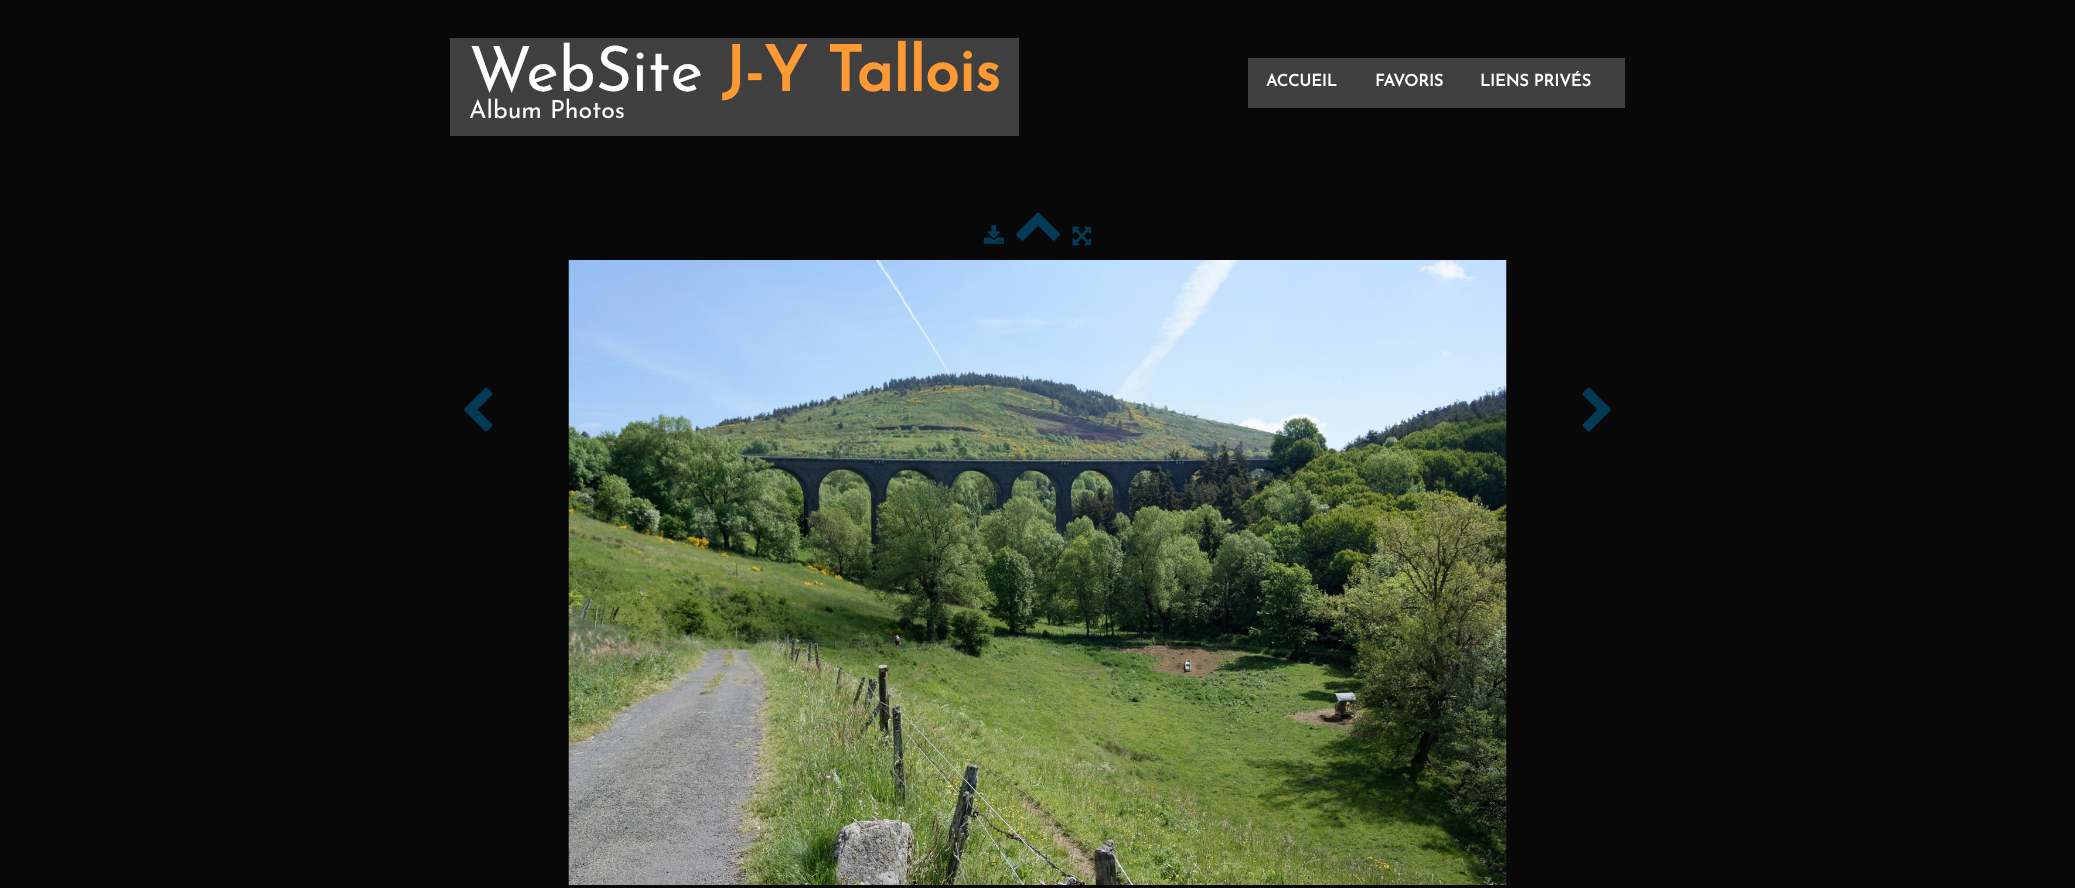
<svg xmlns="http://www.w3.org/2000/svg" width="2075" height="888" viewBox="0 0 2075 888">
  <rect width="100%" height="100%" fill="#080808"/>
  <path d="M450 38h569v98H450z" fill="#404040"/>
  <path d="M1248 58h377v50H1248z" fill="#404040"/>
  <image x="983" y="225" width="21" height="19" href="img/1.png"/>
  <image x="1016" y="212" width="44" height="29" href="img/2.png"/>
  <image x="1072" y="226" width="20" height="20" href="img/3.png"/>
  <image x="464" y="387" width="29" height="45" href="img/4.png"/>
  <image x="568" y="260" width="939" height="625" href="img/5.png"/>
  <image x="1582" y="387" width="29" height="45" href="img/6.png"/>
  <text x="469" y="91" font-family="Josefin Sans" font-size="62.5" font-weight="100" fill="#fff">WebSite</text>
  <text x="722" y="91" font-family="Josefin Sans" font-size="62.5" font-weight="bold" fill="#f93">J-Y Tallois</text>
  <text x="469" y="118" font-family="Josefin Sans" font-size="25" font-weight="100" fill="#fff">Album Photos</text>
  <g font-family="Josefin Sans" font-size="16.25" font-weight="bold" fill="#fff">
    <text x="1266" y="86">ACCUEIL</text>
    <text x="1375" y="86">FAVORIS</text>
    <text x="1480" y="86">LIENS PRIVÉS</text>
  </g>
</svg>
